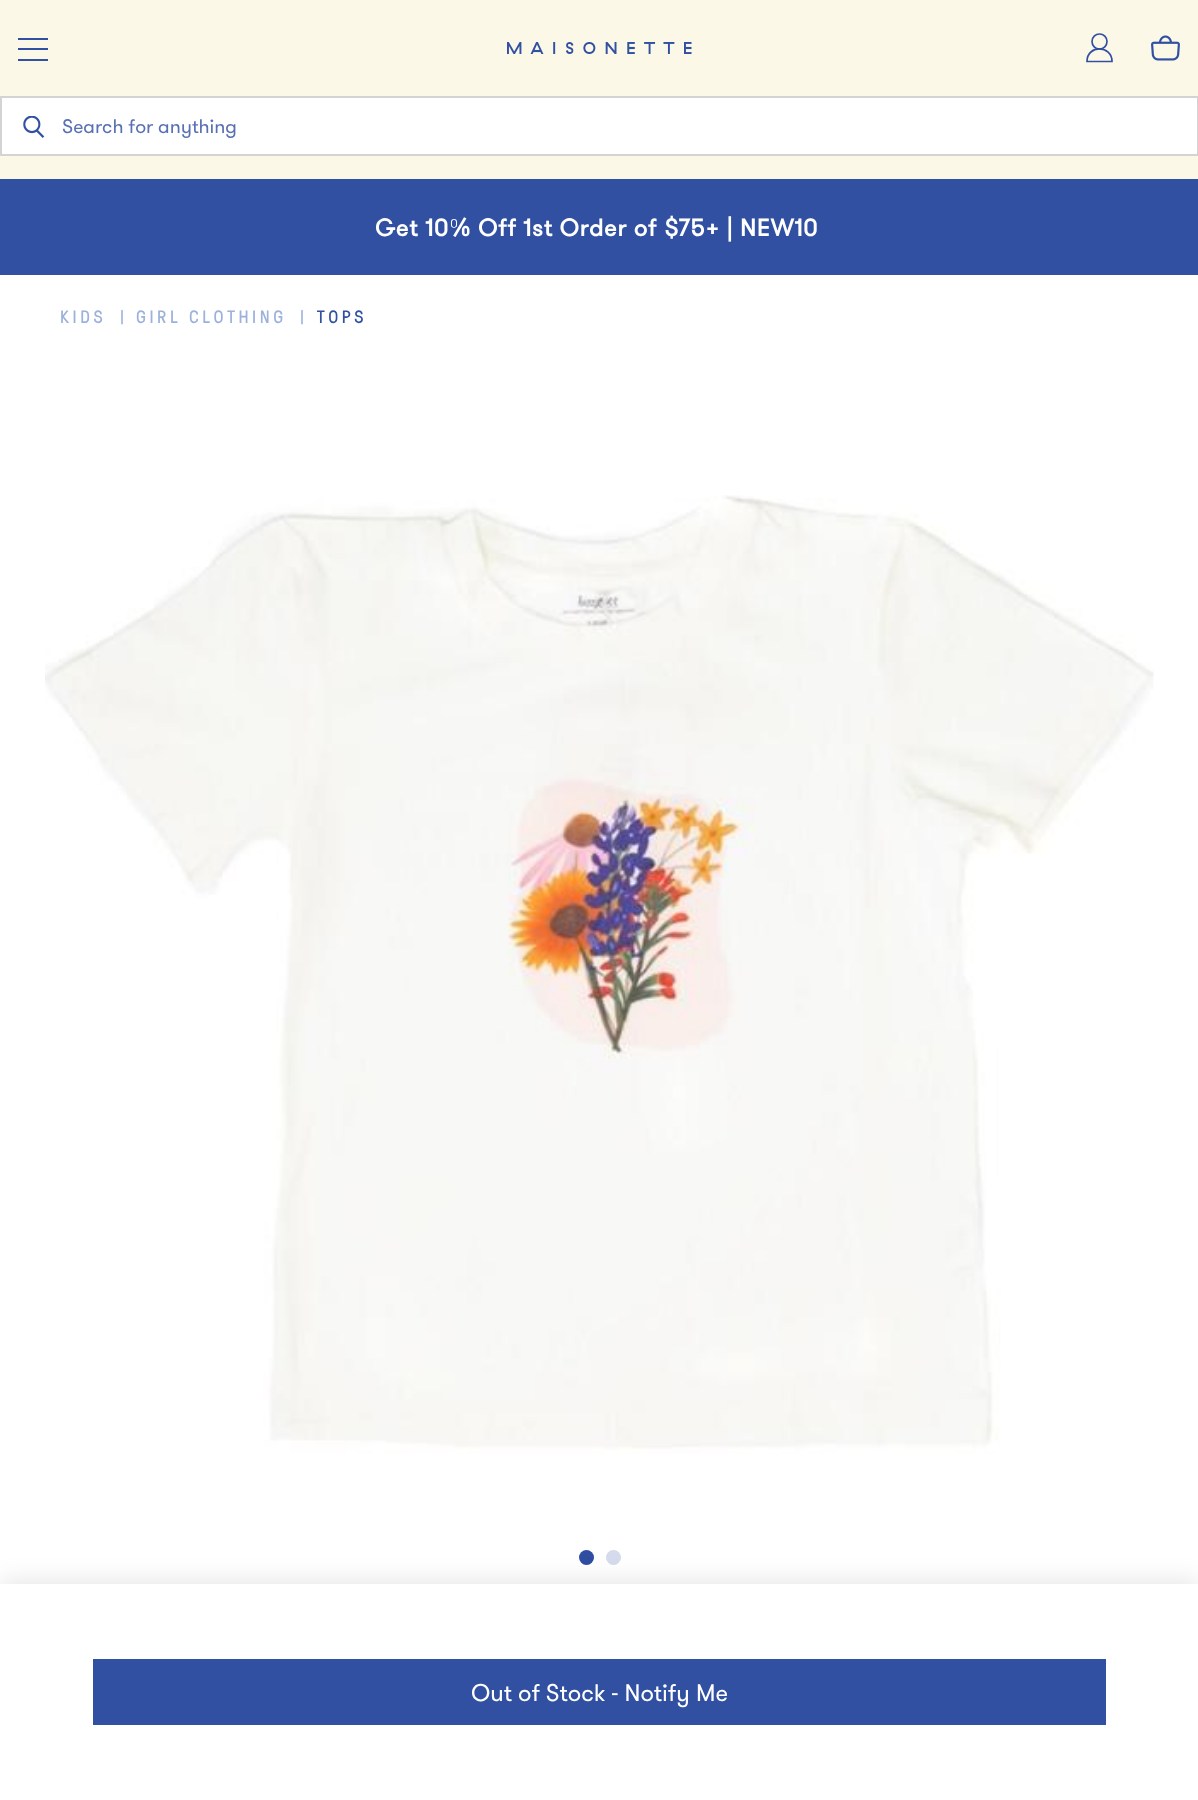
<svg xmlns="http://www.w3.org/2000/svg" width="1198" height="1800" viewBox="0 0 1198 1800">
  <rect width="100%" height="100%" fill="#fff"/>
  <path d="M0 0h1198v179H0z" fill="#fcf8e8"/>
  <path d="M18 48h30v2H18z" fill="#3150a2"/>
  <path d="M18 38h30v2H18z" fill="#3150a2"/>
  <path d="M18 59h30v2H18z" fill="#3150a2"/>
  <image x="507" y="42" width="185" height="12" href="img/1.png"/>
  <circle cx="1099.5" cy="41.5" r="7.5" fill="none" stroke="#3150a2" stroke-width="1.7"/>
  <path d="M1112 61.5C1112 45 1087 44.5 1087 61.5Z" fill="none" stroke="#3150a2" stroke-width="1.7"/>
  <image x="1151" y="35" width="29" height="26" href="img/2.png"/>
  <path d="M1 97h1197v58H1z" fill="#fff" stroke="#d3d3d3" stroke-width="2"/>
  <image x="23" y="116" width="22" height="22" href="img/3.png"/>
  <path d="M0 179h1198v96H0z" fill="#3150a2"/>
  <image x="45" y="495" width="1109" height="959" href="img/4.png"/>
  <circle cx="586.5" cy="1557.5" r="7.5" fill="#2f4da1"/>
  <circle cx="613.5" cy="1557.5" r="7.5" fill="#d5dbec"/>
  <path d="M0 1581h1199v216H0z" fill="#0000001a" filter="blur(12px)"/>
  <path d="M0 1584h1198v216H0z" fill="#fff"/>
  <path d="M93 1659h1013v66H93z" fill="#3150a2"/>
  <text x="62" y="133" font-family="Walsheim" font-size="19.5" fill="#5971b4">Search for anything</text>
  <text x="375" y="236" font-family="Walsheim" font-size="24" font-weight="bold" letter-spacing="0.75" fill="#fff">Get 10% Off 1st Order of $75+ | NEW10</text>
  <text x="60" y="323" font-family="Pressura" font-size="18" letter-spacing="3.6" fill="#9cb1dc">KIDS</text>
  <text x="120" y="323" font-family="Pressura" font-size="18" fill="#9cb1dc">|</text>
  <text x="136" y="323" font-family="Pressura" font-size="18" letter-spacing="3.6" fill="#9cb1dc">GIRL CLOTHING</text>
  <text x="300" y="323" font-family="Pressura" font-size="18" fill="#9cb1dc">|</text>
  <text x="317" y="323" font-family="Pressura" font-size="18" letter-spacing="3.6" fill="#3150a2">TOPS</text>
  <text x="471" y="1701" font-family="Walsheim" font-size="24" fill="#fff">Out of Stock - Notify Me</text>
</svg>
